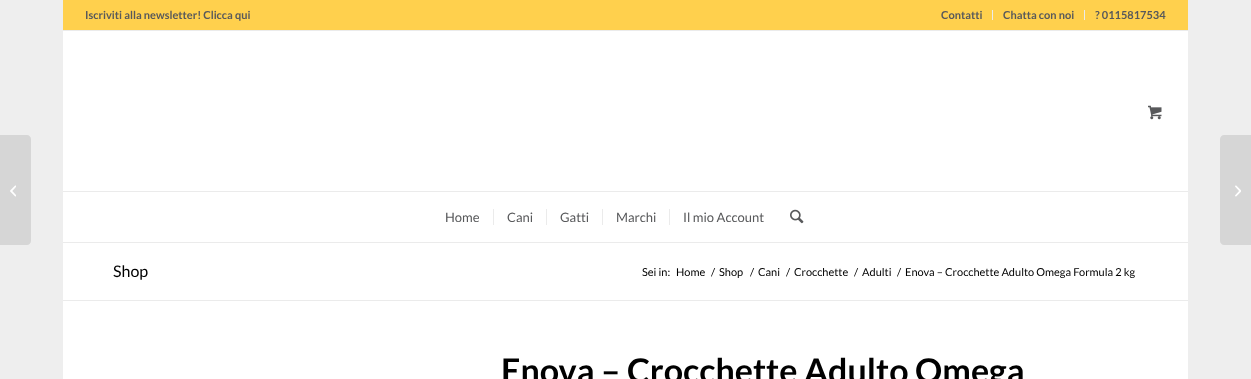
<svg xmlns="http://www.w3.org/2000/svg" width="1251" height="379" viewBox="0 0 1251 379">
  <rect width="100%" height="100%" fill="#eee"/>
  <path d="M0 135H27C29 135 31 137 31 139V241C31 243 29 245 27 245H0Z" fill="#d6d6d6"/>
  <image x="10" y="185" width="6" height="12" href="img/1.png"/>
  <path d="M63 0h1125v30H63z" fill="#ffd04d"/>
  <path d="M63 30h1125v1H63z" fill="#ebebeb"/>
  <path d="M992 10h1v10H992z" fill="#ebebeb"/>
  <path d="M1084 10h1v10H1084z" fill="#ebebeb"/>
  <path d="M63 242h1125v1H63z" fill="#ebebeb"/>
  <path d="M63 31h1125v211H63z" fill="#fff"/>
  <image x="1148" y="105" width="14" height="15" href="img/2.png"/>
  <path d="M63 191h1125v1H63z" fill="#ebebeb"/>
  <path d="M493 209h1v16H493z" fill="#ebebeb"/>
  <path d="M546 209h1v16H546z" fill="#ebebeb"/>
  <path d="M602 209h1v16H602z" fill="#ebebeb"/>
  <path d="M669 209h1v16H669z" fill="#ebebeb"/>
  <image x="790" y="209" width="14" height="15" href="img/3.png"/>
  <path d="M1224 135H1251V245H1224C1222 245 1220 243 1220 241V139C1220 137 1222 135 1224 135Z" fill="#d6d6d6"/>
  <image x="1235" y="185" width="6" height="12" href="img/4.png"/>
  <path d="M63 243h1125v136H63z" fill="#fff"/>
  <path d="M63 300h1125v1H63z" fill="#ebebeb"/>
  <g font-family="Lato" font-size="11" font-weight="bold" fill="#58595b">
    <text x="85" y="19">Iscriviti alla newsletter! Clicca qui</text>
    <text x="941" y="19">Contatti</text>
    <text x="1003" y="19">Chatta con noi</text>
    <text x="1095" y="19">? 0115817534</text>
  </g>
  <g font-family="Lato" font-size="13" fill="#58595b">
    <text x="445" y="222">Home</text>
    <text x="507" y="222">Cani</text>
    <text x="560" y="222">Gatti</text>
    <text x="616" y="222">Marchi</text>
    <text x="683" y="222">Il mio Account</text>
  </g>
  <text x="113" y="277" font-family="Lato" font-size="16" fill="#000">Shop</text>
  <g font-family="Lato" font-size="11" fill="#000">
    <text x="642" y="276">Sei in:</text>
    <text x="676" y="276">Home</text>
    <text x="711" y="276">/</text>
    <text x="719" y="276">Shop</text>
    <text x="750" y="276">/</text>
    <text x="758" y="276">Cani</text>
    <text x="786" y="276">/</text>
    <text x="794" y="276">Crocchette</text>
    <text x="854" y="276">/</text>
    <text x="862" y="276">Adulti</text>
    <text x="897" y="276">/</text>
    <text x="905" y="276">Enova – Crocchette Adulto Omega Formula 2 kg</text>
  </g>
  <text x="501" y="383" font-family="Lato" font-size="34" font-weight="bold" fill="#000">Enova – Crocchette Adulto Omega</text>
</svg>
